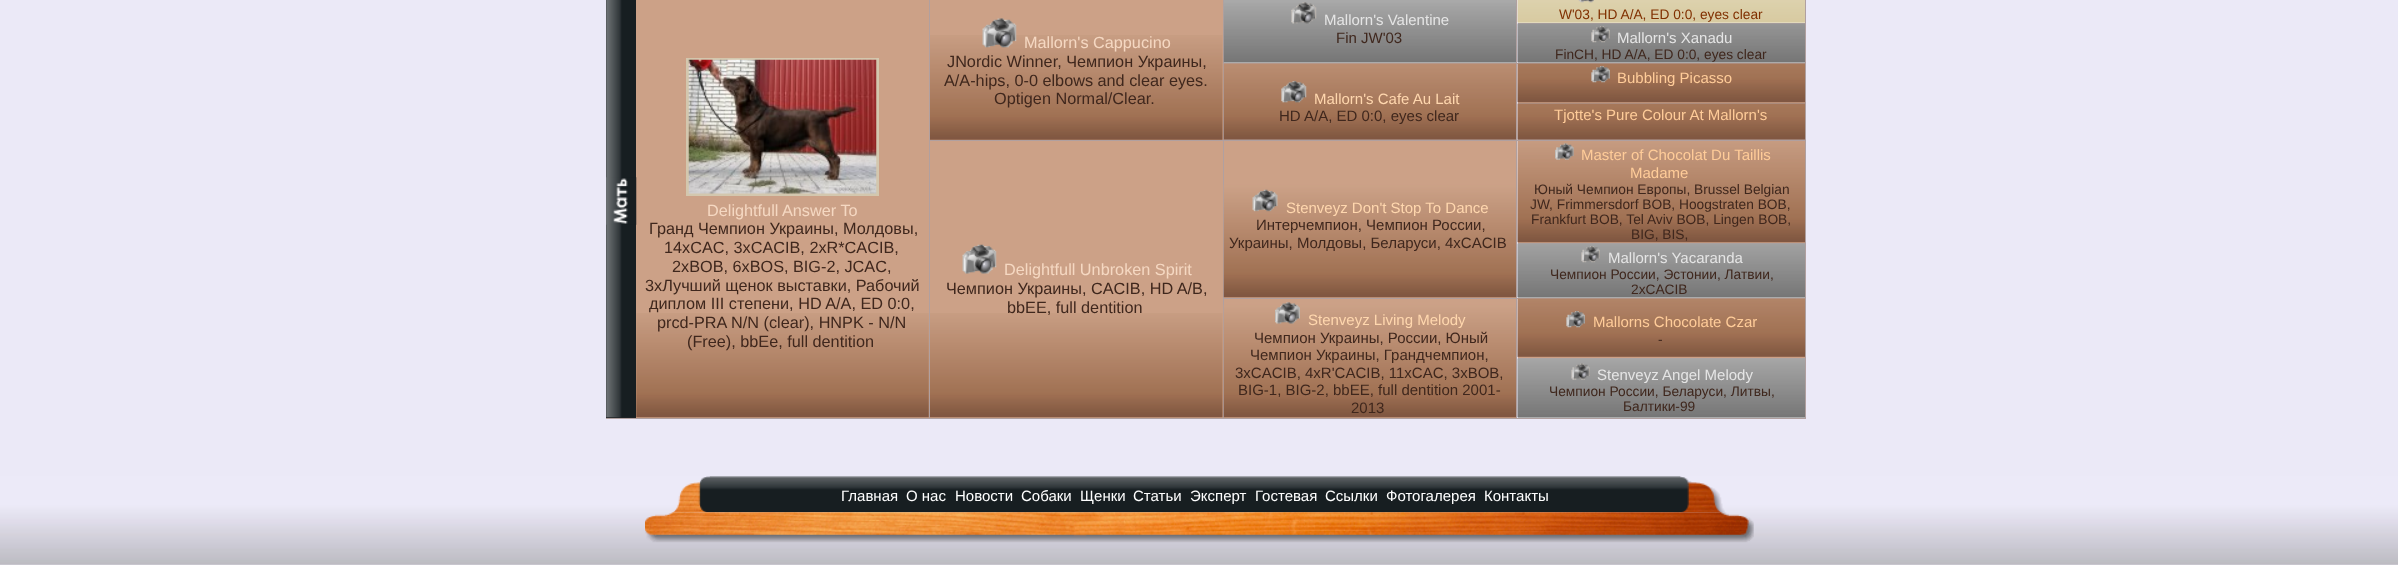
<svg xmlns="http://www.w3.org/2000/svg" width="2398" height="565" viewBox="0 0 2398 565">
  <rect width="100%" height="100%" fill="#ebe9f7"/>
  <path d="M606 0h30v418H606z" fill="#1f2326"/>
  <image x="606" y="0" width="30" height="418" href="img/1.png"/>
  <path d="M636 0h293v418H636z" fill="#cca187"/>
  <image x="606" y="177" width="31" height="48" href="img/2.png"/>
  <image x="636" y="313" width="293" height="105" href="img/3.png"/>
  <path d="M687.5 59.5h190v135H687.5z" fill="none" stroke="#d3c7ae" stroke-width="3"/>
  <image x="688" y="59" width="189" height="135" href="img/4.png"/>
  <path d="M929 0h1v418H929z" fill="#b0a0a0"/>
  <path d="M930 0h293v140H930z" fill="#cca187"/>
  <image x="930" y="35" width="293" height="105" href="img/5.png"/>
  <image x="982" y="18" width="35" height="30" href="img/6.png"/>
  <path d="M1223 0h1v140H1223z" fill="#b0a0a0"/>
  <path d="M1224 62h292v1H1224z" fill="#bcbcbc"/>
  <image x="1223" y="0" width="293" height="63" href="img/7.png"/>
  <image x="1291" y="2" width="26" height="22" href="img/8.png"/>
  <path d="M1516 0h1v63H1516z" fill="#b0a0a0"/>
  <path d="M1518 22h287v1H1518z" fill="#e7dfc4"/>
  <image x="1517" y="0" width="288" height="23" href="img/9.png"/>
  <image x="1578" y="0" width="16" height="3" href="img/10.png"/>
  <path d="M1805 0h1v23H1805z" fill="#b0a0a0"/>
  <path d="M1518 23h288v1H1518z" fill="#b0a0a0"/>
  <path d="M1518 62h287v1H1518z" fill="#bcbcbc"/>
  <image x="1517" y="23" width="288" height="40" href="img/11.png"/>
  <image x="1591" y="26" width="19" height="17" href="img/12.png"/>
  <path d="M1805 24h1v39H1805z" fill="#b0a0a0"/>
  <path d="M1224 63h582v1H1224z" fill="#b0a0a0"/>
  <image x="1223" y="63" width="294" height="77" href="img/13.png"/>
  <image x="1281" y="81" width="26" height="22" href="img/14.png"/>
  <path d="M1516 64h1v76H1516z" fill="#b0a0a0"/>
  <path d="M1518 102h287v1H1518z" fill="#cca187"/>
  <image x="1517" y="63" width="288" height="40" href="img/15.png"/>
  <image x="1591" y="66" width="19" height="17" href="img/16.png"/>
  <path d="M1805 64h1v39H1805z" fill="#b0a0a0"/>
  <path d="M1518 103h288v1H1518z" fill="#b0a0a0"/>
  <image x="1517" y="103" width="288" height="37" href="img/17.png"/>
  <path d="M1805 104h1v36H1805z" fill="#b0a0a0"/>
  <path d="M930 140h876v1H930z" fill="#b0a0a0"/>
  <path d="M930 141h293v277H930z" fill="#cca187"/>
  <image x="930" y="313" width="293" height="105" href="img/18.png"/>
  <image x="962" y="244" width="35" height="30" href="img/19.png"/>
  <path d="M1223 141h1v277H1223z" fill="#b0a0a0"/>
  <path d="M1224 141h292v157H1224z" fill="#cca187"/>
  <image x="1223" y="184" width="293" height="114" href="img/20.png"/>
  <image x="1252" y="189" width="26" height="23" href="img/21.png"/>
  <path d="M1516 141h1v157H1516z" fill="#b0a0a0"/>
  <path d="M1518 242h287v1H1518z" fill="#cca187"/>
  <image x="1517" y="141" width="288" height="102" href="img/22.png"/>
  <image x="1555" y="143" width="19" height="17" href="img/23.png"/>
  <path d="M1805 141h1v102H1805z" fill="#b0a0a0"/>
  <path d="M1518 243h288v1H1518z" fill="#b0a0a0"/>
  <path d="M1518 297h287v1H1518z" fill="#bcbcbc"/>
  <image x="1517" y="243" width="288" height="55" href="img/24.png"/>
  <image x="1581" y="246" width="19" height="17" href="img/25.png"/>
  <path d="M1805 244h1v54H1805z" fill="#b0a0a0"/>
  <path d="M1224 298h582v1H1224z" fill="#b0a0a0"/>
  <path d="M1224 299h292v119H1224z" fill="#cca187"/>
  <image x="1223" y="304" width="293" height="114" href="img/20.png"/>
  <image x="1275" y="302" width="25" height="22" href="img/26.png"/>
  <path d="M1516 299h1v119H1516z" fill="#b0a0a0"/>
  <path d="M1518 357h287v1H1518z" fill="#cca187"/>
  <image x="1517" y="298" width="288" height="60" href="img/27.png"/>
  <image x="1566" y="311" width="19" height="17" href="img/28.png"/>
  <path d="M1805 299h1v59H1805z" fill="#b0a0a0"/>
  <path d="M1518 358h288v1H1518z" fill="#b0a0a0"/>
  <path d="M1518 417h287v1H1518z" fill="#bcbcbc"/>
  <image x="1517" y="358" width="288" height="60" href="img/29.png"/>
  <image x="1571" y="363" width="19" height="17" href="img/30.png"/>
  <path d="M1805 359h1v59H1805z" fill="#b0a0a0"/>
  <path d="M606 418h1200v1H606z" fill="#b0a0a0"/>
  <image x="0" y="476" width="2398" height="89" href="img/31.png"/>
  <image x="673" y="476" width="37" height="37" href="img/32.png"/>
  <image x="710" y="476" width="970" height="37" href="img/33.png"/>
  <image x="1680" y="476" width="45" height="37" href="img/34.png"/>
  <image x="645" y="512" width="1109" height="31" href="img/35.png"/>
  <text x="707" y="216" font-family="Liberation Sans" font-size="16.25" fill="#f5d8c2">Delightfull Answer To</text>
  <g font-family="Liberation Sans" font-size="16.25" fill="#3f271d">
    <text x="649" y="234">Гранд Чемпион Украины, Молдовы,</text>
    <text x="664" y="253">14xCAC, 3xCACIB, 2xR*CACIB,</text>
    <text x="672" y="272">2xBOB, 6xBOS, BIG-2, JCAC,</text>
    <text x="645" y="291">3хЛучший щенок выставки, Рабочий</text>
    <text x="649" y="309">диплом III степени, HD A/A, ED 0:0,</text>
    <text x="657" y="328">prcd-PRA N/N (clear), HNPK - N/N</text>
    <text x="687" y="347">(Free), bbEe, full dentition</text>
  </g>
  <text x="1024" y="48" font-family="Liberation Sans" font-size="16.25" fill="#f5d8c2">Mallorn's Cappucino</text>
  <g font-family="Liberation Sans" font-size="16.25" fill="#3f271d">
    <text x="947" y="67">JNordic Winner, Чемпион Украины,</text>
    <text x="944" y="86">A/A-hips, 0-0 elbows and clear eyes.</text>
    <text x="994" y="104">Optigen Normal/Clear.</text>
  </g>
  <text x="1324" y="25" font-family="Liberation Sans" font-size="15" fill="#e5e5e5">Mallorn's Valentine</text>
  <text x="1336" y="43" font-family="Liberation Sans" font-size="15" fill="#3f271d">Fin JW'03</text>
  <text x="1559" y="19" font-family="Liberation Sans" font-size="13.75" fill="#803000">W'03, HD A/A, ED 0:0, eyes clear</text>
  <text x="1617" y="43" font-family="Liberation Sans" font-size="15" fill="#e5e5e5">Mallorn's Xanadu</text>
  <text x="1555" y="59" font-family="Liberation Sans" font-size="13.75" fill="#3f271d">FinCH, HD A/A, ED 0:0, eyes clear</text>
  <text x="1314" y="104" font-family="Liberation Sans" font-size="15" fill="#ffd7ae">Mallorn's Cafe Au Lait</text>
  <text x="1279" y="121" font-family="Liberation Sans" font-size="15" fill="#3f271d">HD A/A, ED 0:0, eyes clear</text>
  <g font-family="Liberation Sans" font-size="15" fill="#fc9">
    <text x="1617" y="83">Bubbling Picasso</text>
    <text x="1554" y="120">Tjotte's Pure Colour At Mallorn's</text>
  </g>
  <text x="1004" y="275" font-family="Liberation Sans" font-size="16.25" fill="#f5d8c2">Delightfull Unbroken Spirit</text>
  <g font-family="Liberation Sans" font-size="16.25" fill="#3f271d">
    <text x="946" y="294">Чемпион Украины, CACIB, HD A/B,</text>
    <text x="1007" y="313">bbEE, full dentition</text>
  </g>
  <text x="1286" y="213" font-family="Liberation Sans" font-size="15" fill="#ffd7ae">Stenveyz Don't Stop To Dance</text>
  <g font-family="Liberation Sans" font-size="15" fill="#3f271d">
    <text x="1256" y="230">Интерчемпион, Чемпион России,</text>
    <text x="1229" y="248">Украины, Молдовы, Беларуси, 4xCACIB</text>
  </g>
  <g font-family="Liberation Sans" font-size="15" fill="#fc9">
    <text x="1581" y="160">Master of Chocolat Du Taillis</text>
    <text x="1630" y="178">Madame</text>
  </g>
  <g font-family="Liberation Sans" font-size="13.75" fill="#3f271d">
    <text x="1534" y="194">Юный Чемпион Европы, Brussel Belgian</text>
    <text x="1530" y="209">JW, Frimmersdorf BOB, Hoogstraten BOB,</text>
    <text x="1531" y="224">Frankfurt BOB, Tel Aviv BOB, Lingen BOB,</text>
    <text x="1631" y="239">BIG, BIS,</text>
  </g>
  <text x="1608" y="263" font-family="Liberation Sans" font-size="15" fill="#e5e5e5">Mallorn's Yacaranda</text>
  <g font-family="Liberation Sans" font-size="13.75" fill="#3f271d">
    <text x="1550" y="279">Чемпион России, Эстонии, Латвии,</text>
    <text x="1631" y="294">2хCACIB</text>
  </g>
  <text x="1308" y="325" font-family="Liberation Sans" font-size="15" fill="#ffd7ae">Stenveyz Living Melody</text>
  <g font-family="Liberation Sans" font-size="15" fill="#3f271d">
    <text x="1254" y="343">Чемпион Украины, России, Юный</text>
    <text x="1250" y="360">Чемпион Украины, Грандчемпион,</text>
    <text x="1235" y="378">3хCACIB, 4xR'CACIB, 11xCAC, 3xBOB,</text>
    <text x="1238" y="395">BIG-1, BIG-2, bbEE, full dentition 2001-</text>
    <text x="1351" y="413">2013</text>
  </g>
  <text x="1593" y="327" font-family="Liberation Sans" font-size="15" fill="#fc9">Mallorns Chocolate Czar</text>
  <text x="1658" y="344" font-family="Liberation Sans" font-size="13.75" fill="#3f271d">-</text>
  <text x="1597" y="380" font-family="Liberation Sans" font-size="15" fill="#e5e5e5">Stenveyz Angel Melody</text>
  <g font-family="Liberation Sans" font-size="13.75" fill="#3f271d">
    <text x="1549" y="396">Чемпион России, Беларуси, Литвы,</text>
    <text x="1623" y="411">Балтики-99</text>
  </g>
  <g font-family="Liberation Sans" font-size="15" fill="#fff">
    <text x="841" y="501">Главная</text>
    <text x="906" y="501">О нас</text>
    <text x="955" y="501">Новости</text>
    <text x="1021" y="501">Собаки</text>
    <text x="1080" y="501">Щенки</text>
    <text x="1133" y="501">Статьи</text>
    <text x="1190" y="501">Эксперт</text>
    <text x="1255" y="501">Гостевая</text>
    <text x="1325" y="501">Ссылки</text>
    <text x="1386" y="501">Фотогалерея</text>
    <text x="1484" y="501">Контакты</text>
  </g>
</svg>
